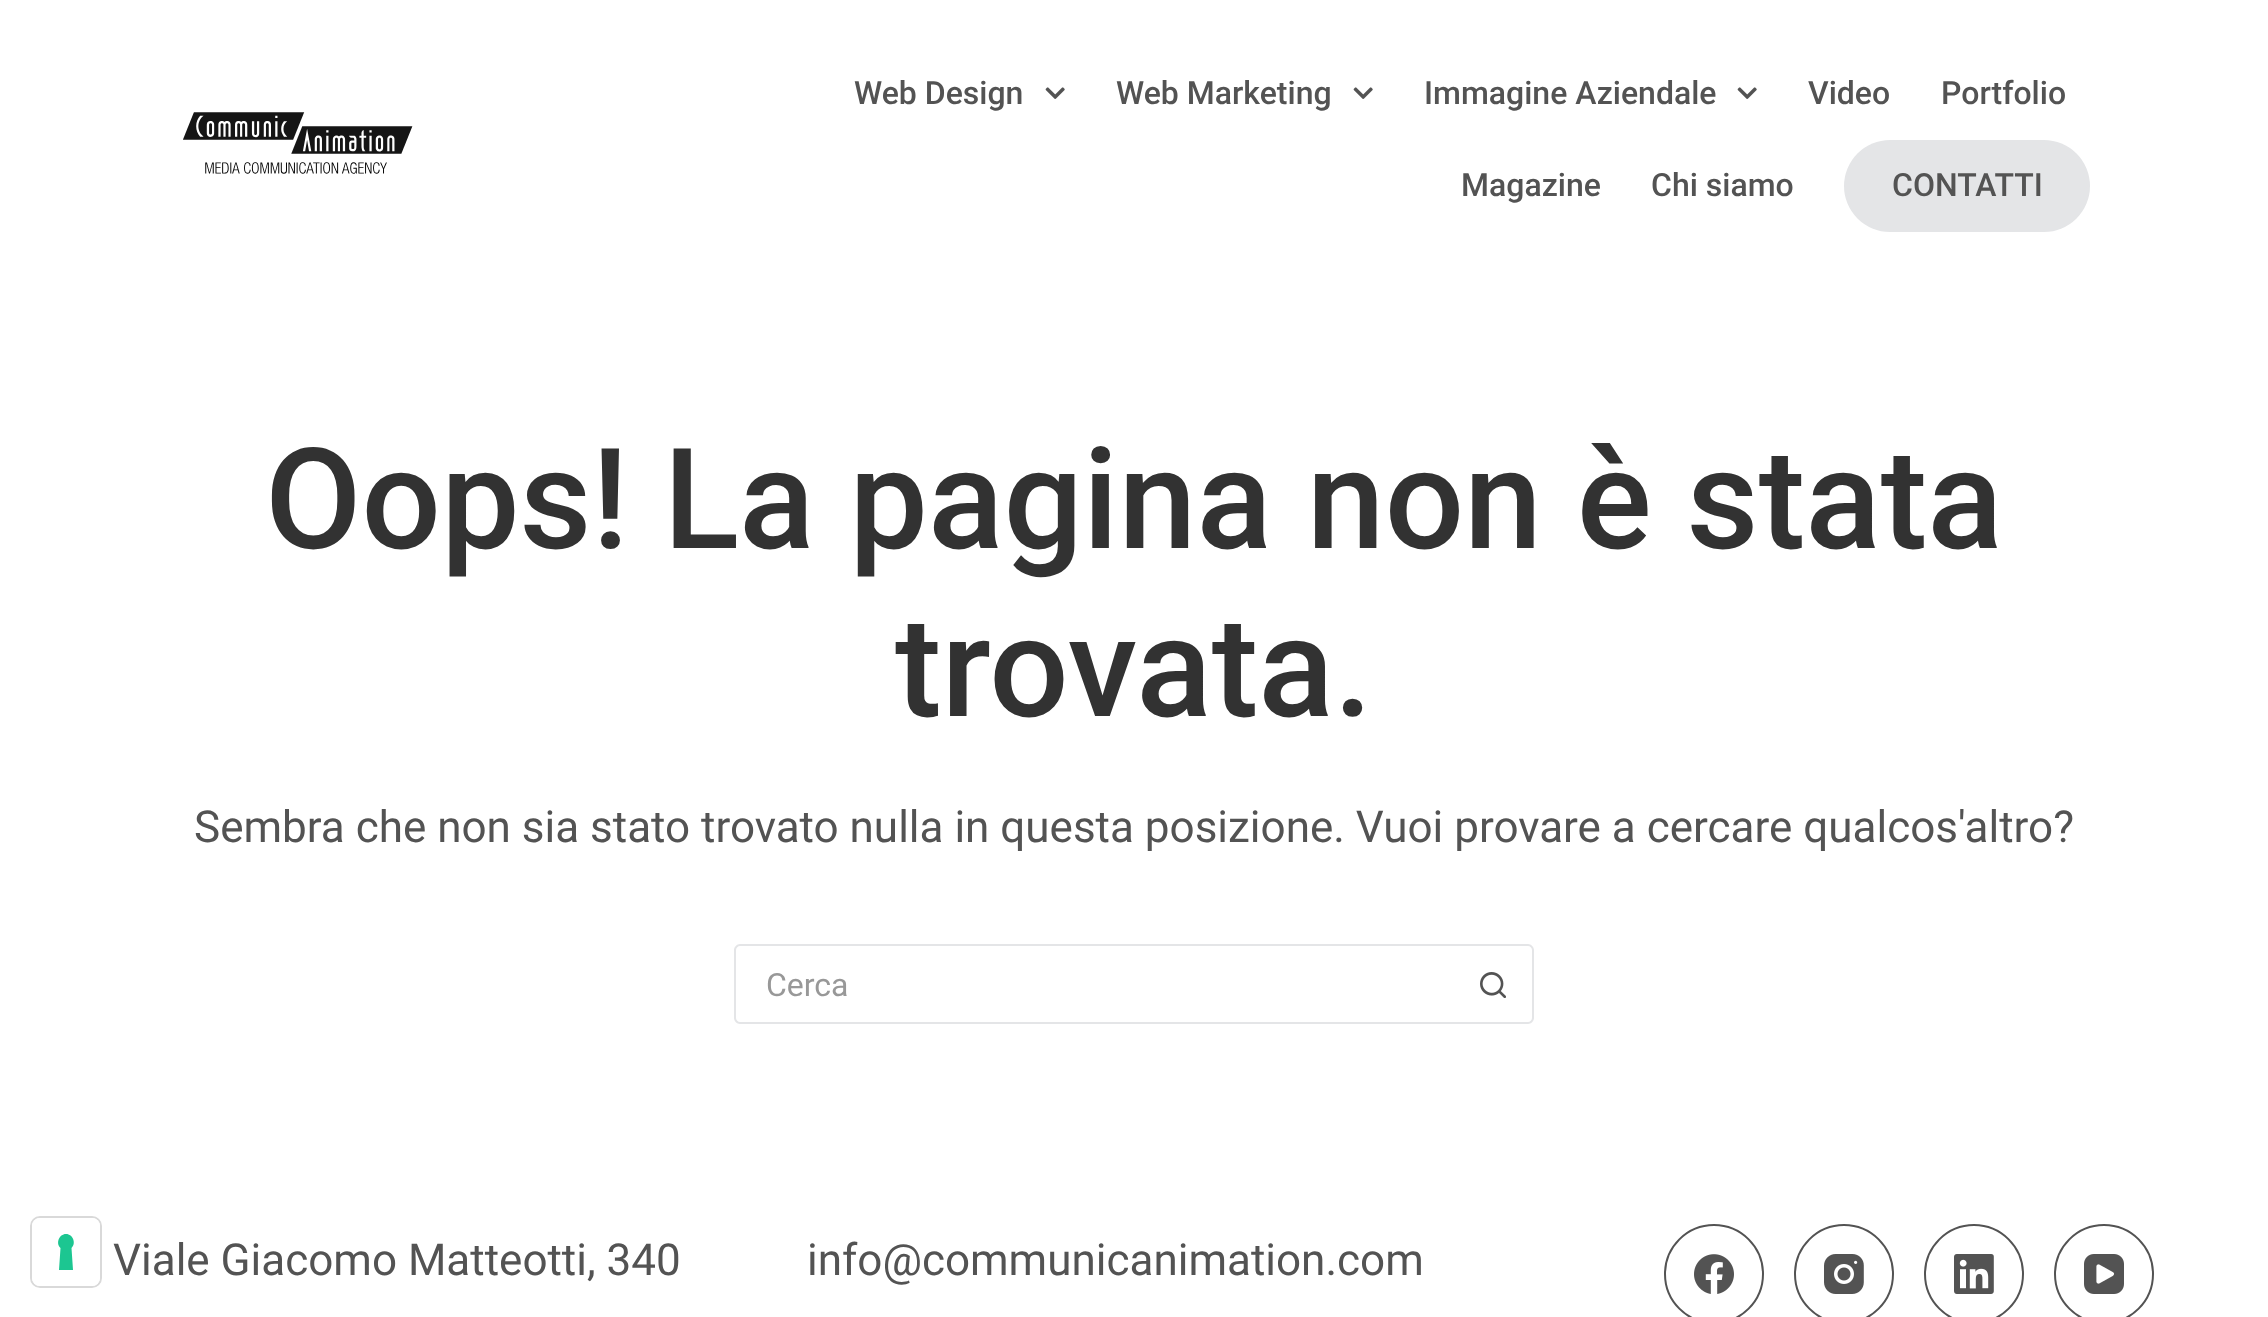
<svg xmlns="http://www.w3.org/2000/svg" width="2268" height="1317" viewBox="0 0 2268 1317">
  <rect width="100%" height="100%" fill="#fff"/>
  <rect x="31" y="1217" width="70" height="70" rx="9" fill="none" stroke="#d9d9d9" stroke-width="2"/>
  <rect x="32" y="1218" width="68" height="68" rx="8" fill="#fff"/>
  <path d="M66 1234C73 1234 76.5 1243.5 71.5 1248L73 1270H59L60.5 1248C55.5 1243.5 59 1234 66 1234Z" fill="#1cc691" fill-rule="evenodd"/>
  <image x="183" y="112" width="230" height="62" href="img/1.png"/>
  <image x="1045" y="87" width="20" height="12" href="img/2.png"/>
  <image x="1353" y="87" width="20" height="12" href="img/2.png"/>
  <image x="1737" y="87" width="20" height="12" href="img/2.png"/>
  <rect x="1844" y="140" width="246" height="92" rx="46" fill="#e4e5e7"/>
  <path d="M740 944H1454V1024H740C737 1024 734 1021 734 1018V950C734 947 737 944 740 944ZM740 946H1454V1022H740C738 1022 736 1020 736 1018V950C736 948 738 946 740 946Z" fill="#e4e5e7" fill-rule="evenodd"/>
  <path d="M1454 944H1528C1531 944 1534 947 1534 950V1018C1534 1021 1531 1024 1528 1024H1454ZM1454 946H1528C1530 946 1532 948 1532 950V1018C1532 1020 1530 1022 1528 1022H1454Z" fill="#e4e5e7" fill-rule="evenodd"/>
  <image x="1480" y="972" width="26" height="26" href="img/3.png"/>
  <circle cx="1714" cy="1274" r="49" fill="none" stroke="#535353" stroke-width="2"/>
  <image x="1694" y="1254" width="40" height="40" href="img/4.png"/>
  <circle cx="1844" cy="1274" r="49" fill="none" stroke="#535353" stroke-width="2"/>
  <image x="1824" y="1254" width="40" height="40" href="img/5.png"/>
  <circle cx="1974" cy="1274" r="49" fill="none" stroke="#535353" stroke-width="2"/>
  <image x="1954" y="1254" width="40" height="40" href="img/6.png"/>
  <circle cx="2104" cy="1274" r="49" fill="none" stroke="#535353" stroke-width="2"/>
  <image x="2084" y="1254" width="40" height="40" href="img/7.png"/>
  <g font-family="Roboto" font-size="32" font-weight="500" fill="#535353">
    <text x="854" y="104">Web Design</text>
    <text x="1116" y="104">Web Marketing</text>
    <text x="1424" y="104">Immagine Aziendale</text>
    <text x="1808" y="104">Video</text>
    <text x="1941" y="104">Portfolio</text>
    <text x="1461" y="196">Magazine</text>
    <text x="1651" y="196">Chi siamo</text>
    <text x="1892" y="196">CONTATTI</text>
  </g>
  <g font-family="Roboto" font-size="140" font-weight="500" fill="#323232">
    <text x="265" y="548">Oops! La pagina non è stata</text>
    <text x="895" y="716">trovata.</text>
  </g>
  <text x="194" y="842" font-family="Roboto" font-size="44" fill="#535353">Sembra che non sia stato trovato nulla in questa posizione. Vuoi provare a cercare qualcos'altro?</text>
  <text x="766" y="996" font-family="Roboto" font-size="32" fill="#989898">Cerca</text>
  <g font-family="Roboto" font-size="44" fill="#535353">
    <text x="113" y="1275">Viale Giacomo Matteotti, 340</text>
    <text x="807" y="1275">info@communicanimation.com</text>
  </g>
</svg>
